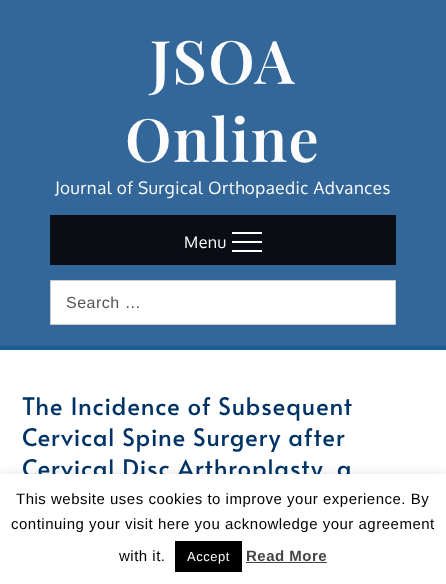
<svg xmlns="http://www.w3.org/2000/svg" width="446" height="584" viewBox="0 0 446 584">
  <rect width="100%" height="100%" fill="#fff"/>
  <path d="M0 0h446v346H0z" fill="#369"/>
  <path d="M50 215h346v50H50z" fill="#0a0e14"/>
  <path d="M232 232h30v2H232z" fill="#fff"/>
  <path d="M232 241h30v2H232z" fill="#fff"/>
  <path d="M232 250h30v2H232z" fill="#fff"/>
  <path d="M50.5 280.5h345v44H50.5z" fill="#fff" stroke="#ccc"/>
  <path d="M0 346h446v4H0z" fill="#1e5b99"/>
  <path d="M0 473h446v110H0z" fill="#acabab4d" filter="blur(5px)"/>
  <g font-family="Playfair Display" font-size="60" font-weight="600" letter-spacing="1.5" fill="#fcfcfc">
    <text x="150" y="84">JSOA</text>
    <text x="125" y="162">Online</text>
  </g>
  <text x="55" y="194" font-family="Oxygen" font-size="17" letter-spacing="0.5" fill="#fcfcfc">Journal of Surgical Orthopaedic Advances</text>
  <text x="184" y="248" font-family="Oxygen" font-size="16" letter-spacing="0.5" fill="#fcfcfc">Menu</text>
  <text x="66" y="308" font-family="Liberation Sans" font-size="16" letter-spacing="0.5" fill="#555">Search …</text>
  <g font-family="Alata" font-size="24" letter-spacing="1" fill="#036">
    <text x="22" y="415">The Incidence of Subsequent</text>
    <text x="22" y="446">Cervical Spine Surgery after</text>
    <text x="22" y="477">Cervical Disc Arthroplasty, a</text>
  </g>
  <path d="M0 474h446v110H0z" fill="#fff"/>
  <g font-family="Liberation Sans" font-size="15" letter-spacing="0.5" fill="#000">
    <text x="16" y="504">This website uses cookies to improve your experience. By</text>
    <text x="11" y="529">continuing your visit here you acknowledge your agreement</text>
    <text x="119" y="561">with it.</text>
  </g>
  <path d="M175 541h67v31H175z" fill="#000"/>
  <text x="187" y="561" font-family="Liberation Sans" font-size="13" letter-spacing="0.5" fill="#fcfcfc">Accept</text>
  <text x="246" y="561" font-family="Liberation Sans" font-size="15" font-weight="bold" letter-spacing="0.5" fill="#444">Read More</text>
  <path d="M246 562h81v1H246z" fill="#444"/>
</svg>
